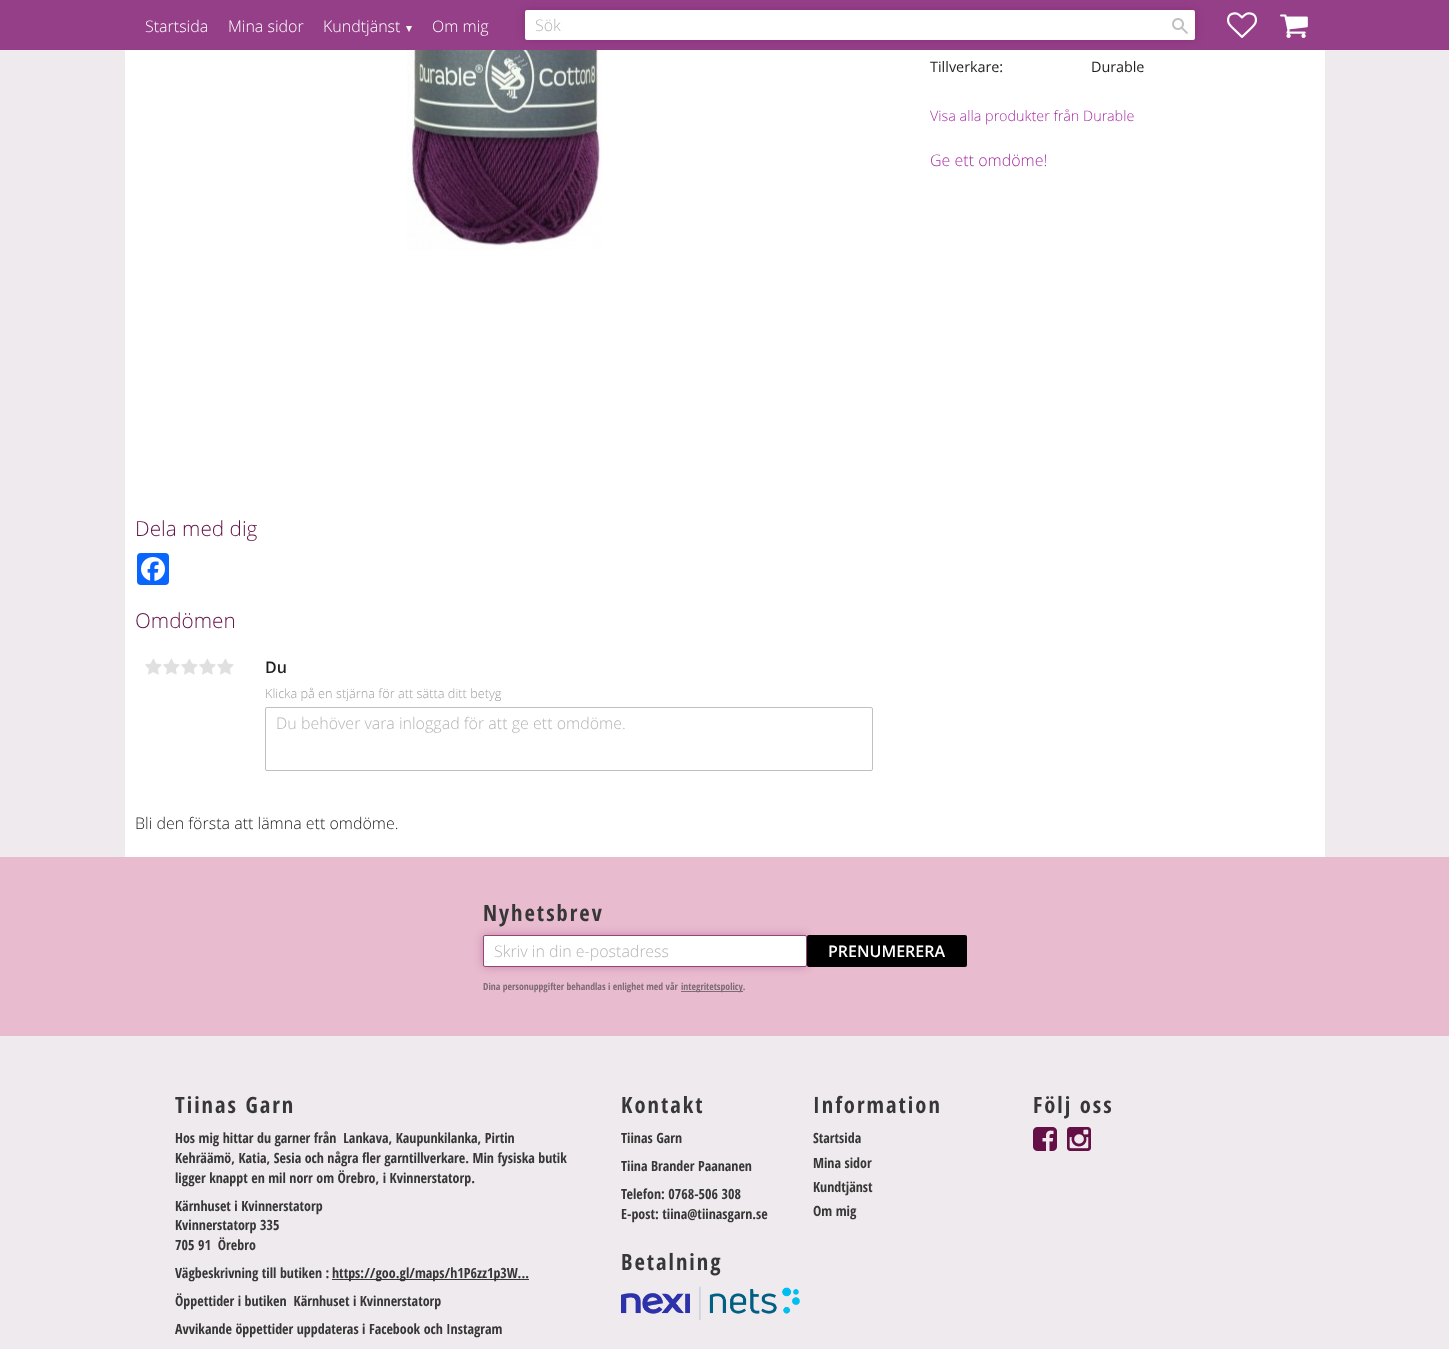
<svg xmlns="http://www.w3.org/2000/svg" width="1449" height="1349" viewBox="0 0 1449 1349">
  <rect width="100%" height="100%" fill="#efeaed"/>
  <path d="M0 0h1449v50H0z" fill="#953f89"/>
  <path d="M125 50h1200v807H125z" fill="#fff"/>
  <image x="407" y="50" width="195" height="200" href="img/4.png"/>
  <rect x="525" y="10" width="670" height="30" rx="2" fill="#6410474d" filter="blur(4px)"/>
  <rect x="525" y="10" width="670" height="30" rx="2" fill="#fff"/>
  <image x="1172" y="18" width="16" height="16" href="img/1.png"/>
  <image x="1227" y="12" width="30" height="26" href="img/2.png"/>
  <image x="1280" y="14" width="28" height="24" href="img/3.png"/>
  <rect x="137" y="553" width="32" height="32" rx="4" fill="#0866ff"/>
  <image x="141" y="557" width="24" height="24" href="img/5.png"/>
  <image x="145" y="658" width="17" height="17" href="img/6.png"/>
  <image x="163" y="658" width="17" height="17" href="img/6.png"/>
  <image x="181" y="658" width="17" height="17" href="img/6.png"/>
  <image x="199" y="658" width="17" height="17" href="img/6.png"/>
  <image x="217" y="658" width="17" height="17" href="img/6.png"/>
  <rect x="265.5" y="707.5" width="607" height="63" rx="1.5" fill="none" stroke="#c0c0c0"/>
  <path d="M0 857h1449v179H0z" fill="#e9bbcf"/>
  <rect x="483" y="935" width="324" height="32" rx="2" fill="#6410474d" filter="blur(4px)"/>
  <rect x="483.5" y="935.5" width="323" height="31" rx="1.5" fill="#fff" stroke="#96447a"/>
  <rect x="807" y="935" width="160" height="32" rx="2" fill="#000"/>
  <path d="M681 991h62v1H681z" fill="#7e6c74"/>
  <path d="M332 1279h197v1H332z" fill="#373737"/>
  <image x="621" y="1286" width="179" height="34" href="img/7.png"/>
  <image x="1033" y="1127" width="24" height="24" href="img/8.png"/>
  <image x="1067" y="1127" width="24" height="24" href="img/9.png"/>
  <g font-family="Open Sans" font-size="16" font-weight="300" fill="#fff">
    <text x="145" y="32">Startsida</text>
    <text x="228" y="32">Mina sidor</text>
    <text x="323" y="32">Kundtjänst</text>
  </g>
  <text x="406" y="32" font-family="DejaVu Sans" font-size="12" fill="#fff">▾</text>
  <text x="432" y="32" font-family="Open Sans" font-size="16" font-weight="300" fill="#fff">Om mig</text>
  <text x="535" y="31" font-family="Open Sans" font-size="16" font-weight="300" fill="#b4b4b4">Sök</text>
  <g font-family="Open Sans" font-size="14.4" fill="#1e1e1e">
    <text x="930" y="72">Tillverkare:</text>
    <text x="1091" y="72">Durable</text>
  </g>
  <text x="930" y="121" font-family="Open Sans" font-size="14.4" font-weight="300" fill="#a72ca2">Visa alla produkter från Durable</text>
  <text x="930" y="166" font-family="Open Sans" font-size="16" font-weight="300" fill="#a72ca2">Ge ett omdöme!</text>
  <g font-family="Open Sans" font-size="20.75" font-weight="300" fill="#641047">
    <text x="135" y="536">Dela med dig</text>
    <text x="135" y="628">Omdömen</text>
  </g>
  <text x="265" y="673" font-family="Open Sans" font-size="16" font-weight="600" fill="#1e1e1e">Du</text>
  <text x="265" y="698" font-family="Open Sans" font-size="12.75" font-weight="300" fill="#9e9e9e">Klicka på en stjärna för att sätta ditt betyg</text>
  <text x="276" y="729" font-family="Open Sans" font-size="16" font-weight="300" fill="#b4b4b4">Du behöver vara inloggad för att ge ett omdöme.</text>
  <text x="135" y="829" font-family="Open Sans" font-size="16" font-weight="300" fill="#1e1e1e">Bli den första att lämna ett omdöme.</text>
  <text x="483" y="921" font-family="Open Sans Condensed" font-size="22.5" font-weight="bold" letter-spacing="2" fill="#373737">Nyhetsbrev</text>
  <text x="494" y="957" font-family="Open Sans" font-size="16" font-weight="300" fill="#b4b4b4">Skriv in din e-postadress</text>
  <text x="828" y="957" font-family="Open Sans" font-size="16" font-weight="600" fill="#fff">PRENUMERERA</text>
  <g font-family="Open Sans Condensed" font-size="9.75" font-weight="bold" fill="#7e6c74">
    <text x="483" y="990">Dina personuppgifter behandlas i enlighet med vår</text>
    <text x="681" y="990">integritetspolicy.</text>
  </g>
  <text x="175" y="1113" font-family="Open Sans Condensed" font-size="22.5" font-weight="bold" letter-spacing="2" fill="#373737">Tiinas Garn</text>
  <g font-family="Open Sans Condensed" font-size="14" font-weight="bold" fill="#373737">
    <text x="175" y="1143" xml:space="preserve">Hos mig hittar du garner från  Lankava, Kaupunkilanka, Pirtin</text>
    <text x="175" y="1163">Kehräämö, Katia, Sesia och några fler garntillverkare. Min fysiska butik</text>
    <text x="175" y="1183">ligger knappt en mil norr om Örebro, i Kvinnerstatorp.</text>
    <text x="175" y="1211">Kärnhuset i Kvinnerstatorp</text>
    <text x="175" y="1230">Kvinnerstatorp 335</text>
    <text x="175" y="1250" xml:space="preserve">705 91  Örebro</text>
    <text x="175" y="1278">Vägbeskrivning till butiken :</text>
    <text x="332" y="1278">https://goo.gl/maps/h1P6zz1p3W...</text>
    <text x="175" y="1306" xml:space="preserve">Öppettider i butiken  Kärnhuset i Kvinnerstatorp</text>
    <text x="175" y="1334">Avvikande öppettider uppdateras i Facebook och Instagram</text>
  </g>
  <text x="621" y="1113" font-family="Open Sans Condensed" font-size="22.5" font-weight="bold" letter-spacing="2" fill="#373737">Kontakt</text>
  <g font-family="Open Sans Condensed" font-size="14" font-weight="bold" fill="#373737">
    <text x="621" y="1143">Tiinas Garn</text>
    <text x="621" y="1171">Tiina Brander Paananen</text>
    <text x="621" y="1199">Telefon: 0768-506 308</text>
    <text x="621" y="1219">E-post: tiina@tiinasgarn.se</text>
  </g>
  <g font-family="Open Sans Condensed" font-size="22.5" font-weight="bold" letter-spacing="2" fill="#373737">
    <text x="621" y="1270">Betalning</text>
    <text x="813" y="1113">Information</text>
  </g>
  <g font-family="Open Sans Condensed" font-size="14" font-weight="bold" fill="#373737">
    <text x="813" y="1143">Startsida</text>
    <text x="813" y="1168">Mina sidor</text>
    <text x="813" y="1192">Kundtjänst</text>
    <text x="813" y="1216">Om mig</text>
  </g>
  <text x="1033" y="1113" font-family="Open Sans Condensed" font-size="22.5" font-weight="bold" letter-spacing="2" fill="#373737">Följ oss</text>
</svg>
